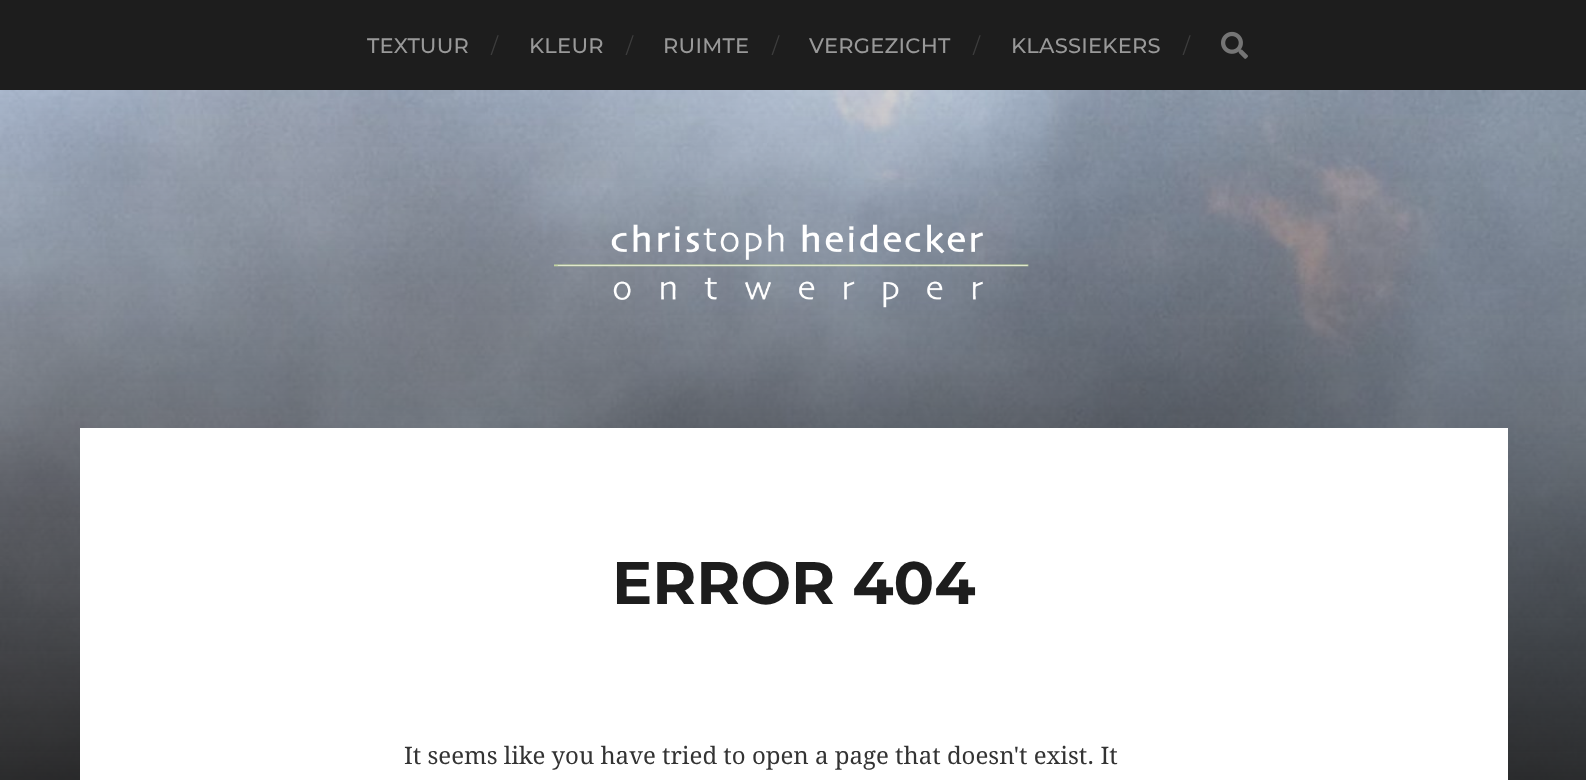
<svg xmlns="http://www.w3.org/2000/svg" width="1586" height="780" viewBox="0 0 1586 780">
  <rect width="100%" height="100%" fill="#1d1d1d"/>
  <image x="1221" y="31" width="27" height="28" href="img/1.png"/>
  <image x="0" y="90" width="1586" height="690" href="img/2.png"/>
  <image x="554" y="224" width="475" height="84" href="img/3.png"/>
  <path d="M80 428h1428v352H80z" fill="#fff"/>
  <text x="367" y="53" font-family="Montserrat" font-size="21" font-weight="100" letter-spacing="0.25" fill="#999">TEXTUUR</text>
  <text x="491" y="53" font-family="'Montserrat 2'" font-size="21" font-weight="100" fill="#3d3d3d">/</text>
  <text x="529" y="53" font-family="Montserrat" font-size="21" font-weight="100" letter-spacing="0.25" fill="#999">KLEUR</text>
  <text x="626" y="53" font-family="'Montserrat 2'" font-size="21" font-weight="100" fill="#3d3d3d">/</text>
  <text x="663" y="53" font-family="Montserrat" font-size="21" font-weight="100" letter-spacing="0.25" fill="#999">RUIMTE</text>
  <text x="772" y="53" font-family="'Montserrat 2'" font-size="21" font-weight="100" fill="#3d3d3d">/</text>
  <text x="809" y="53" font-family="Montserrat" font-size="21" font-weight="100" letter-spacing="0.25" fill="#999">VERGEZICHT</text>
  <text x="973" y="53" font-family="'Montserrat 2'" font-size="21" font-weight="100" fill="#3d3d3d">/</text>
  <text x="1011" y="53" font-family="Montserrat" font-size="21" font-weight="100" letter-spacing="0.25" fill="#999">KLASSIEKERS</text>
  <text x="1183" y="53" font-family="'Montserrat 2'" font-size="21" font-weight="100" fill="#3d3d3d">/</text>
  <text x="612" y="604" font-family="'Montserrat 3'" font-size="60" font-weight="100" fill="#1d1d1d">ERROR 404</text>
  <text x="404" y="764" font-family="Droid Serif" font-size="24" fill="#333">It seems like you have tried to open a page that doesn't exist. It</text>
</svg>
